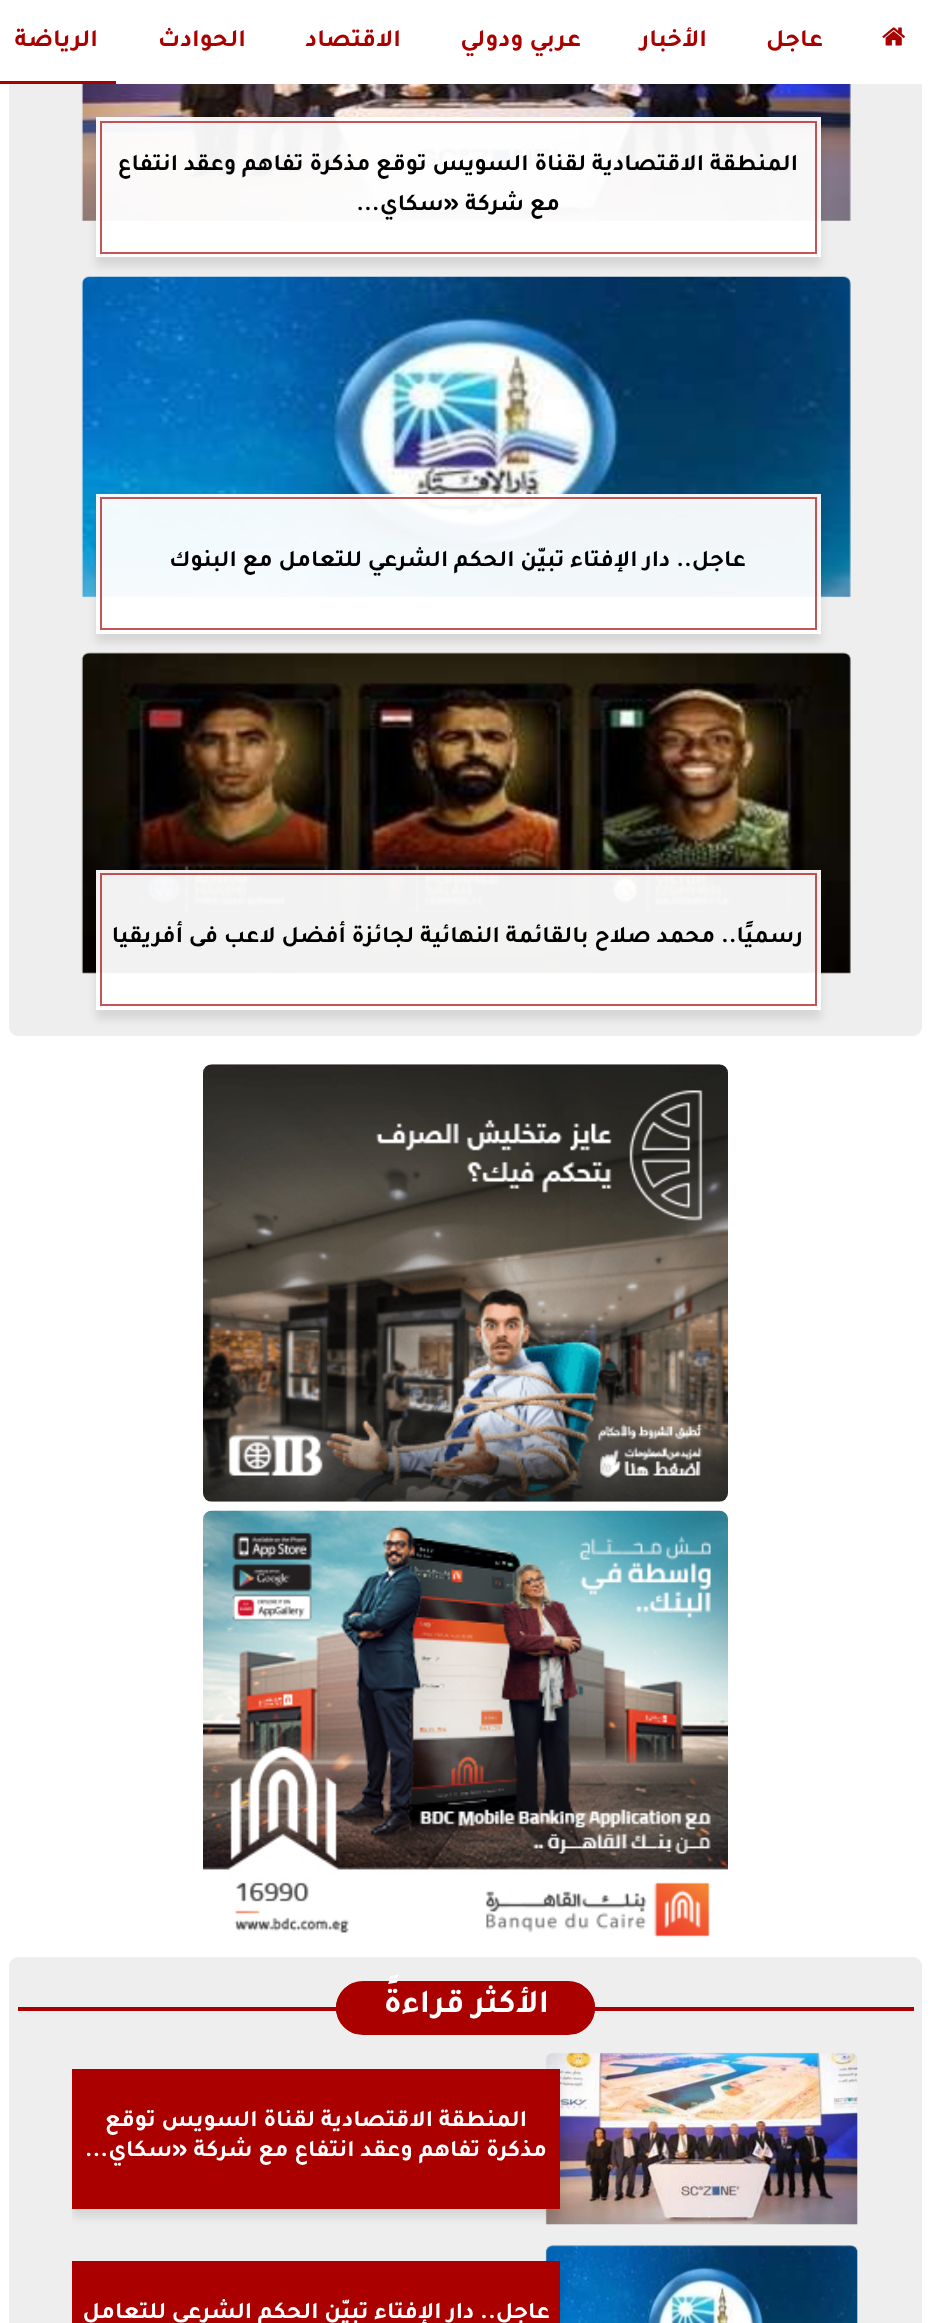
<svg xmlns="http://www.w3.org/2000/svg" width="931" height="2323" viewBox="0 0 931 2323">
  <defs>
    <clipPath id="clip1"><path d="M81 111H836V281H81ZM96 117H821V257H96Z" clip-rule="evenodd"/></clipPath>
    <clipPath id="clip2"><path d="M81 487H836V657H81ZM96 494H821V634H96Z" clip-rule="evenodd"/></clipPath>
    <clipPath id="clip3"><path d="M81 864H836V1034H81ZM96 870H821V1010H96Z" clip-rule="evenodd"/></clipPath>
    <clipPath id="clip4"><rect x="336" y="1981" width="259" height="54" rx="27"/></clipPath>
    <clipPath id="clip5"><path d="M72 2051h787v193H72z"/></clipPath>
    <clipPath id="clip6"><path d="M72 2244h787v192H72z"/></clipPath>
  </defs>
  <rect width="100%" height="100%" fill="#fff"/>
  <rect x="9" y="-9" width="913" height="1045" rx="9" fill="#eee"/>
  <path d="M9 0h913v84H9z" fill="#fff"/>
  <image x="882" y="27" width="23" height="19" href="img/1.png"/>
  <path d="M0 81h116v3H0z" fill="#a00"/>
  <image x="81" y="84" width="770" height="137" href="img/2.png"/>
  <image x="81" y="276" width="770" height="322" href="img/3.png"/>
  <g clip-path="url(#clip1)">
    <path d="M96 126h725v140H96z" fill="#0000001a" filter="blur(4.5px)"/>
  </g>
  <path d="M96 117h725v140H96z" fill="#fffffff2"/>
  <path d="M101 122h715v131H101z" fill="none" stroke="#aa0000ab" stroke-width="2"/>
  <image x="81" y="652" width="770" height="322" href="img/4.png"/>
  <g clip-path="url(#clip2)">
    <path d="M96 502h725v140H96z" fill="#0000001a" filter="blur(4.5px)"/>
  </g>
  <path d="M96 494h725v140H96z" fill="#fffffff2"/>
  <path d="M101 498h715v131H101z" fill="none" stroke="#aa0000ab" stroke-width="2"/>
  <g clip-path="url(#clip3)">
    <path d="M96 879h725v140H96z" fill="#0000001a" filter="blur(4.5px)"/>
  </g>
  <path d="M96 870h725v140H96z" fill="#fffffff2"/>
  <path d="M101 874h715v131H101z" fill="none" stroke="#aa0000ab" stroke-width="2"/>
  <image x="203" y="1064" width="525" height="438" href="img/5.png"/>
  <image x="203" y="1510" width="525" height="427" href="img/6.png"/>
  <rect x="9" y="1957" width="913" height="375" rx="9" fill="#eee"/>
  <path d="M18 2007h896v4H18z" fill="#a00"/>
  <g clip-path="url(#clip4)">
    <path d="M336 1983h259v51H336z" fill="#a00"/>
  </g>
  <rect x="337" y="1982" width="257" height="52" rx="26" fill="none" stroke="#a00" stroke-width="2"/>
  <image x="545" y="2052" width="313" height="173" href="img/7.png"/>
  <g clip-path="url(#clip5)">
    <path d="M72 2077h488v140H72z" fill="#0000001a" filter="blur(4.5px)"/>
  </g>
  <path d="M72 2069h488v140H72z" fill="#a00"/>
  <image x="545" y="2245" width="313" height="78" href="img/8.png"/>
  <g clip-path="url(#clip6)">
    <path d="M72 2270h488v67H72z" fill="#0000001a" filter="blur(4.5px)"/>
  </g>
  <path d="M72 2261h488v62H72z" fill="#a00"/>
  <g font-family="Tajawal" font-size="25" font-weight="bold" direction="rtl" fill="#a00">
    <text x="823" y="46">عاجل</text>
    <text x="707" y="46">الأخبار</text>
    <text x="581" y="46">عربي ودولي</text>
    <text x="401" y="46">الاقتصاد</text>
    <text x="246" y="46">الحوادث</text>
    <text x="98" y="46">الرياضة</text>
  </g>
  <g font-family="Tajawal" font-size="23.8" font-weight="bold" direction="rtl" fill="#000">
    <text x="798" y="170">المنطقة الاقتصادية لقناة السويس توقع مذكرة تفاهم وعقد انتفاع</text>
    <text x="560" y="210">مع شركة «سكاي...</text>
    <text x="746" y="566">عاجل.. دار الإفتاء تبيّن الحكم الشرعي للتعامل مع البنوك</text>
    <text x="803" y="942">رسميًا.. محمد صلاح بالقائمة النهائية لجائزة أفضل لاعب فى أفريقيا</text>
  </g>
  <text x="549" y="2012" font-family="Tajawal" font-size="33.5" font-weight="bold" direction="rtl" fill="#fff">الأكثر قراءةً</text>
  <g font-family="Tajawal" font-size="23.8" font-weight="bold" direction="rtl" fill="#fff">
    <text x="527" y="2126">المنطقة الاقتصادية لقناة السويس توقع</text>
    <text x="547" y="2156">مذكرة تفاهم وعقد انتفاع مع شركة «سكاي...</text>
    <text x="550" y="2318">عاجل.. دار الإفتاء تبيّن الحكم الشرعي للتعامل</text>
  </g>
</svg>
